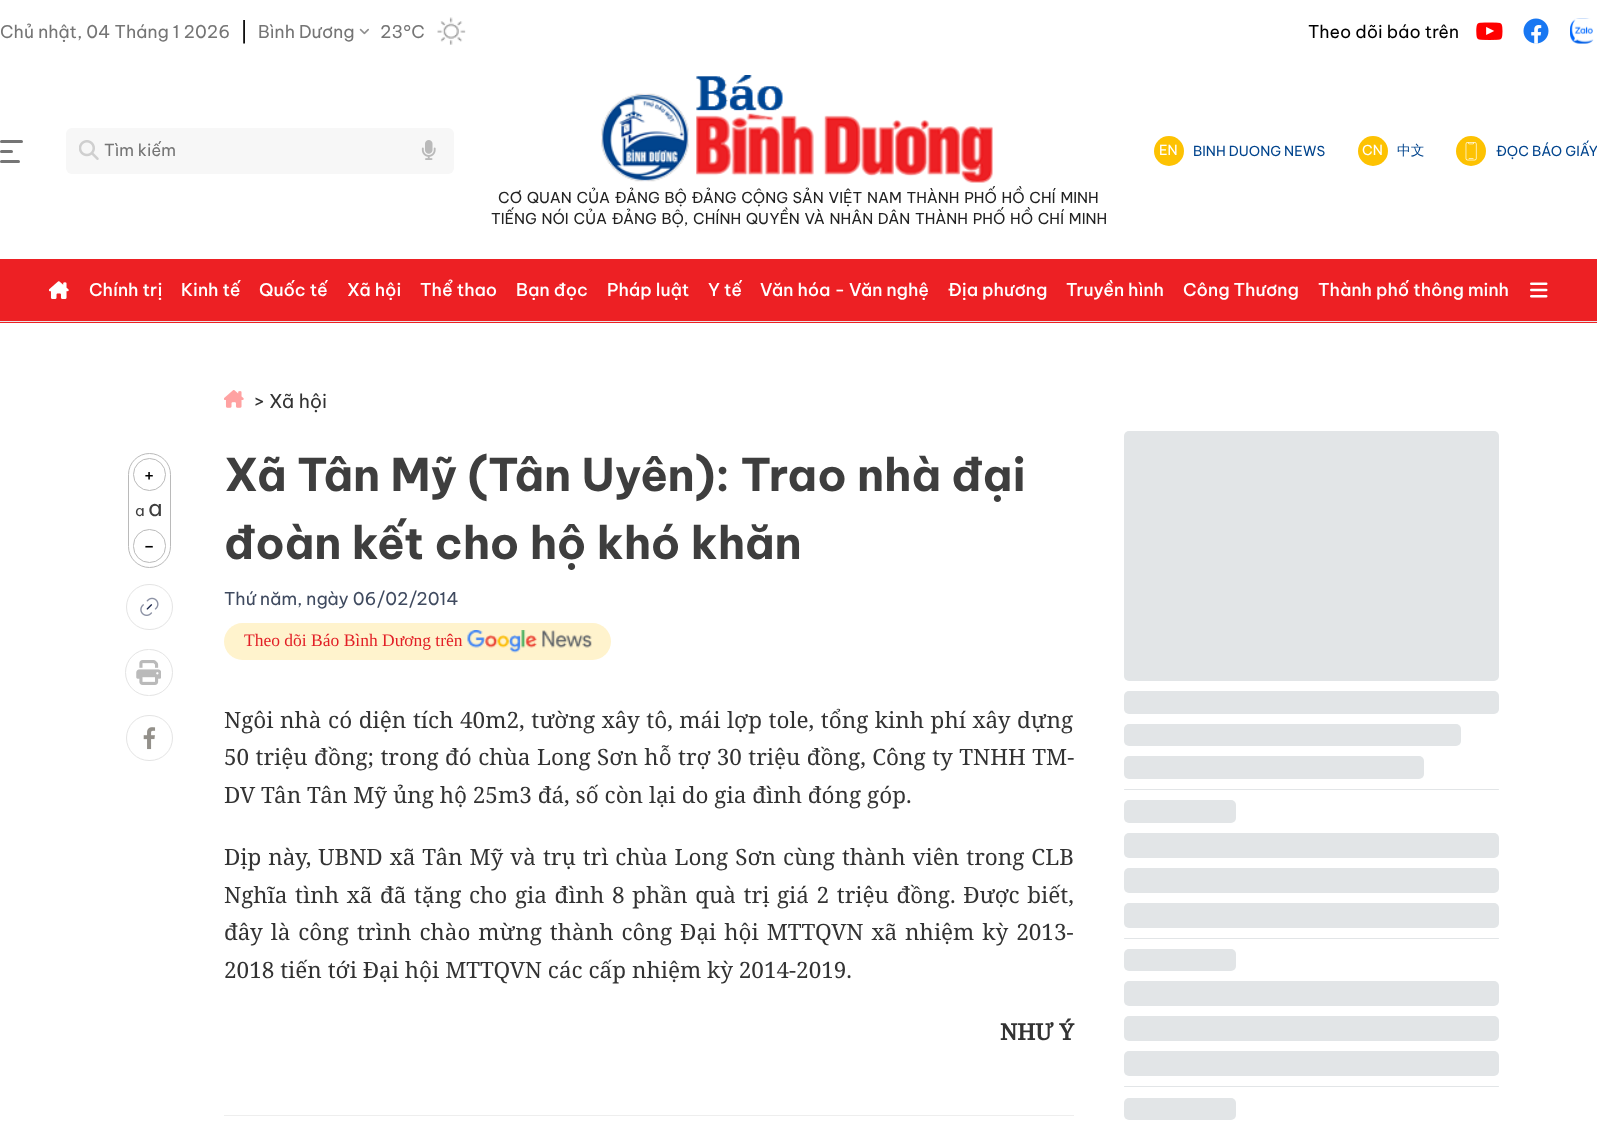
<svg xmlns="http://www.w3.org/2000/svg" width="1597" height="1127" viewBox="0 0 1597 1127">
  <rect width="100%" height="100%" fill="#fff"/>
  <image x="359" y="28" width="10" height="7" href="img/1.png"/>
  <image x="437" y="17" width="29" height="28" href="img/2.png"/>
  <image x="1476" y="22" width="27" height="18" href="img/3.png"/>
  <image x="1523" y="18" width="26" height="26" href="img/4.png"/>
  <image x="1570" y="18" width="24" height="26" href="img/5.png"/>
  <rect y="140" width="23" height="3" rx="1.5" fill="#757575"/>
  <rect y="150" width="13" height="3" rx="1.5" fill="#757575"/>
  <rect y="160" width="20" height="3" rx="1.5" fill="#757575"/>
  <rect x="66" y="128" width="388" height="46" rx="6" fill="#f7f7f7"/>
  <image x="79" y="140" width="20" height="20" href="img/6.png"/>
  <image x="421" y="140" width="15" height="20" href="img/7.png"/>
  <circle cx="1169" cy="151" r="15" fill="#fdc202"/>
  <circle cx="1373" cy="151" r="15" fill="#fdc202"/>
  <circle cx="1471" cy="151" r="15" fill="#fdc202"/>
  <image x="1465" y="142" width="12" height="19" href="img/8.png"/>
  <image x="601" y="75" width="392" height="108" href="img/9.png"/>
  <path d="M0 259h1597v64H0z" fill="#ed2024"/>
  <path d="M0 321h1597v1H0z" fill="#e6e6e6"/>
  <image x="49" y="281" width="20" height="18" href="img/10.png"/>
  <image x="1530" y="282" width="18" height="16" href="img/11.png"/>
  <rect x="128.5" y="453.5" width="42" height="114" rx="21" fill="none" stroke="#bababa"/>
  <circle cx="149.5" cy="474.5" r="16" fill="none" stroke="#bababa"/>
  <rect x="133.5" y="529.5" width="32" height="33" rx="16" fill="none" stroke="#bababa"/>
  <rect x="126.5" y="584.5" width="46" height="45" rx="22.5" fill="none" stroke="#e4e4e4"/>
  <image x="140" y="597" width="19" height="19" href="img/12.png"/>
  <rect x="125.5" y="649.5" width="47" height="46" rx="23" fill="none" stroke="#e4e4e4"/>
  <image x="136" y="660" width="25" height="25" href="img/13.png"/>
  <rect x="126.5" y="715.5" width="46" height="45" rx="22.5" fill="none" stroke="#e4e4e4"/>
  <image x="143" y="727" width="13" height="23" href="img/14.png"/>
  <image x="224" y="390" width="20" height="18" href="img/15.png"/>
  <rect x="224" y="623" width="387" height="37" rx="18.5" fill="#fff3cd"/>
  <image x="467" y="630" width="125" height="23" href="img/16.png"/>
  <path d="M224 1115h850v1H224z" fill="#eee"/>
  <rect x="1124" y="431" width="375" height="250" rx="5" fill="#e2e5e7"/>
  <rect x="1124" y="691" width="375" height="23" rx="5" fill="#e2e5e7"/>
  <rect x="1124" y="724" width="337" height="22" rx="5" fill="#e2e5e7"/>
  <rect x="1124" y="756" width="300" height="23" rx="5" fill="#e2e5e7"/>
  <rect x="1124" y="789" width="375" height="1" rx="0.5" fill="#e2e5e7"/>
  <rect x="1124" y="800" width="112" height="23" rx="5" fill="#e2e5e7"/>
  <rect x="1124" y="833" width="375" height="25" rx="5" fill="#e2e5e7"/>
  <rect x="1124" y="868" width="375" height="25" rx="5" fill="#e2e5e7"/>
  <rect x="1124" y="903" width="375" height="25" rx="5" fill="#e2e5e7"/>
  <rect x="1124" y="938" width="375" height="1" rx="0.5" fill="#e2e5e7"/>
  <rect x="1124" y="949" width="112" height="22" rx="5" fill="#e2e5e7"/>
  <rect x="1124" y="981" width="375" height="25" rx="5" fill="#e2e5e7"/>
  <rect x="1124" y="1016" width="375" height="25" rx="5" fill="#e2e5e7"/>
  <rect x="1124" y="1051" width="375" height="25" rx="5" fill="#e2e5e7"/>
  <rect x="1124" y="1086" width="375" height="1" rx="0.5" fill="#e2e5e7"/>
  <rect x="1124" y="1098" width="112" height="22" rx="5" fill="#e2e5e7"/>
  <text x="0" y="38" font-family="Be Vietnam Pro" font-size="17.5" fill="#757575">Chủ nhật, 04 Tháng 1 2026</text>
  <text x="240" y="39" font-family="Be Vietnam Pro" font-size="20" fill="#000">|</text>
  <g font-family="Be Vietnam Pro" font-size="17.5" fill="#757575">
    <text x="258" y="38">Bình Dương</text>
    <text x="380" y="38">23°C</text>
  </g>
  <text x="1308" y="38" font-family="Be Vietnam Pro" font-size="17.5" fill="#000">Theo dõi báo trên</text>
  <text x="104" y="156" font-family="Be Vietnam Pro" font-size="16.5" fill="#757575">Tìm kiếm</text>
  <text x="1159" y="155" font-family="Be Vietnam Pro" font-size="13.75" fill="#fff">EN</text>
  <text x="1193" y="156" font-family="Be Vietnam Pro" font-size="13.75" fill="#01448d">BINH DUONG NEWS</text>
  <text x="1362" y="155" font-family="Be Vietnam Pro" font-size="13.75" fill="#fff">CN</text>
  <text x="1397" y="155" font-family="WenQuanYi Zen Hei" font-size="13.75" font-weight="500" fill="#01448d">中文</text>
  <text x="1496" y="156" font-family="Be Vietnam Pro" font-size="13.75" fill="#01448d">ĐỌC BÁO GIẤY</text>
  <g font-family="Be Vietnam Pro" font-size="15" fill="#222">
    <text x="498" y="203" word-spacing="1.25">CƠ QUAN CỦA ĐẢNG BỘ ĐẢNG CỘNG SẢN VIỆT NAM THÀNH PHỐ HỒ CHÍ MINH</text>
    <text x="491" y="224" word-spacing="1.25">TIẾNG NÓI CỦA ĐẢNG BỘ, CHÍNH QUYỀN VÀ NHÂN DÂN THÀNH PHỐ HỒ CHÍ MINH</text>
  </g>
  <g font-family="Be Vietnam Pro" font-size="17.5" font-weight="500" fill="#fff">
    <text x="89" y="296">Chính trị</text>
    <text x="181" y="296">Kinh tế</text>
    <text x="259" y="296">Quốc tế</text>
    <text x="347" y="296">Xã hội</text>
    <text x="420" y="296">Thể thao</text>
    <text x="516" y="296">Bạn đọc</text>
    <text x="607" y="296">Pháp luật</text>
    <text x="708" y="296">Y tế</text>
    <text x="760" y="296">Văn hóa - Văn nghệ</text>
    <text x="948" y="296">Địa phương</text>
    <text x="1066" y="296">Truyền hình</text>
    <text x="1183" y="296">Công Thương</text>
    <text x="1318" y="296">Thành phố thông minh</text>
  </g>
  <text x="143" y="482" font-family="Be Vietnam Pro" font-size="20" fill="#000">+</text>
  <text x="135" y="516" font-family="Be Vietnam Pro" font-size="15" fill="#3e3e3e">a</text>
  <text x="148" y="516" font-family="Be Vietnam Pro" font-size="22.5" fill="#3e3e3e">a</text>
  <text x="143" y="553" font-family="Be Vietnam Pro" font-size="20" fill="#000">-</text>
  <text x="254" y="408" font-family="Be Vietnam Pro" font-size="19" fill="#333">&gt; Xã hội</text>
  <g font-family="Be Vietnam Pro" font-size="45" font-weight="bold" fill="#3e3e3e">
    <text x="224" y="491">Xã Tân Mỹ (Tân Uyên): Trao nhà đại</text>
    <text x="224" y="559">đoàn kết cho hộ khó khăn</text>
  </g>
  <text x="224" y="605" font-family="Be Vietnam Pro" font-size="17.5" fill="#3f4a5f">Thứ năm, ngày 06/02/2014</text>
  <text x="244" y="646" font-family="Liberation Serif" font-size="17.5" fill="#e21f26">Theo dõi Báo Bình Dương trên</text>
  <g font-family="Noto Serif" font-size="22.5" fill="#333">
    <text x="224" y="728" word-spacing="0.75">Ngôi nhà có diện tích 40m2, tường xây tô, mái lợp tole, tổng kinh phí xây dựng</text>
    <text x="224" y="765" word-spacing="0.6">50 triệu đồng; trong đó chùa Long Sơn hỗ trợ 30 triệu đồng, Công ty TNHH TM-</text>
    <text x="224" y="803">DV Tân Tân Mỹ ủng hộ 25m3 đá, số còn lại do gia đình đóng góp.</text>
    <text x="224" y="865" word-spacing="1.1">Dịp này, UBND xã Tân Mỹ và trụ trì chùa Long Sơn cùng thành viên trong CLB</text>
    <text x="224" y="903" word-spacing="1.8">Nghĩa tình xã đã tặng cho gia đình 8 phần quà trị giá 2 triệu đồng. Được biết,</text>
    <text x="224" y="940" word-spacing="2.1">đây là công trình chào mừng thành công Đại hội MTTQVN xã nhiệm kỳ 2013-</text>
    <text x="224" y="978">2018 tiến tới Đại hội MTTQVN các cấp nhiệm kỳ 2014-2019.</text>
  </g>
  <text x="1000" y="1040" font-family="Noto Serif" font-size="22.5" font-weight="bold" fill="#333">NHƯ Ý</text>
</svg>
